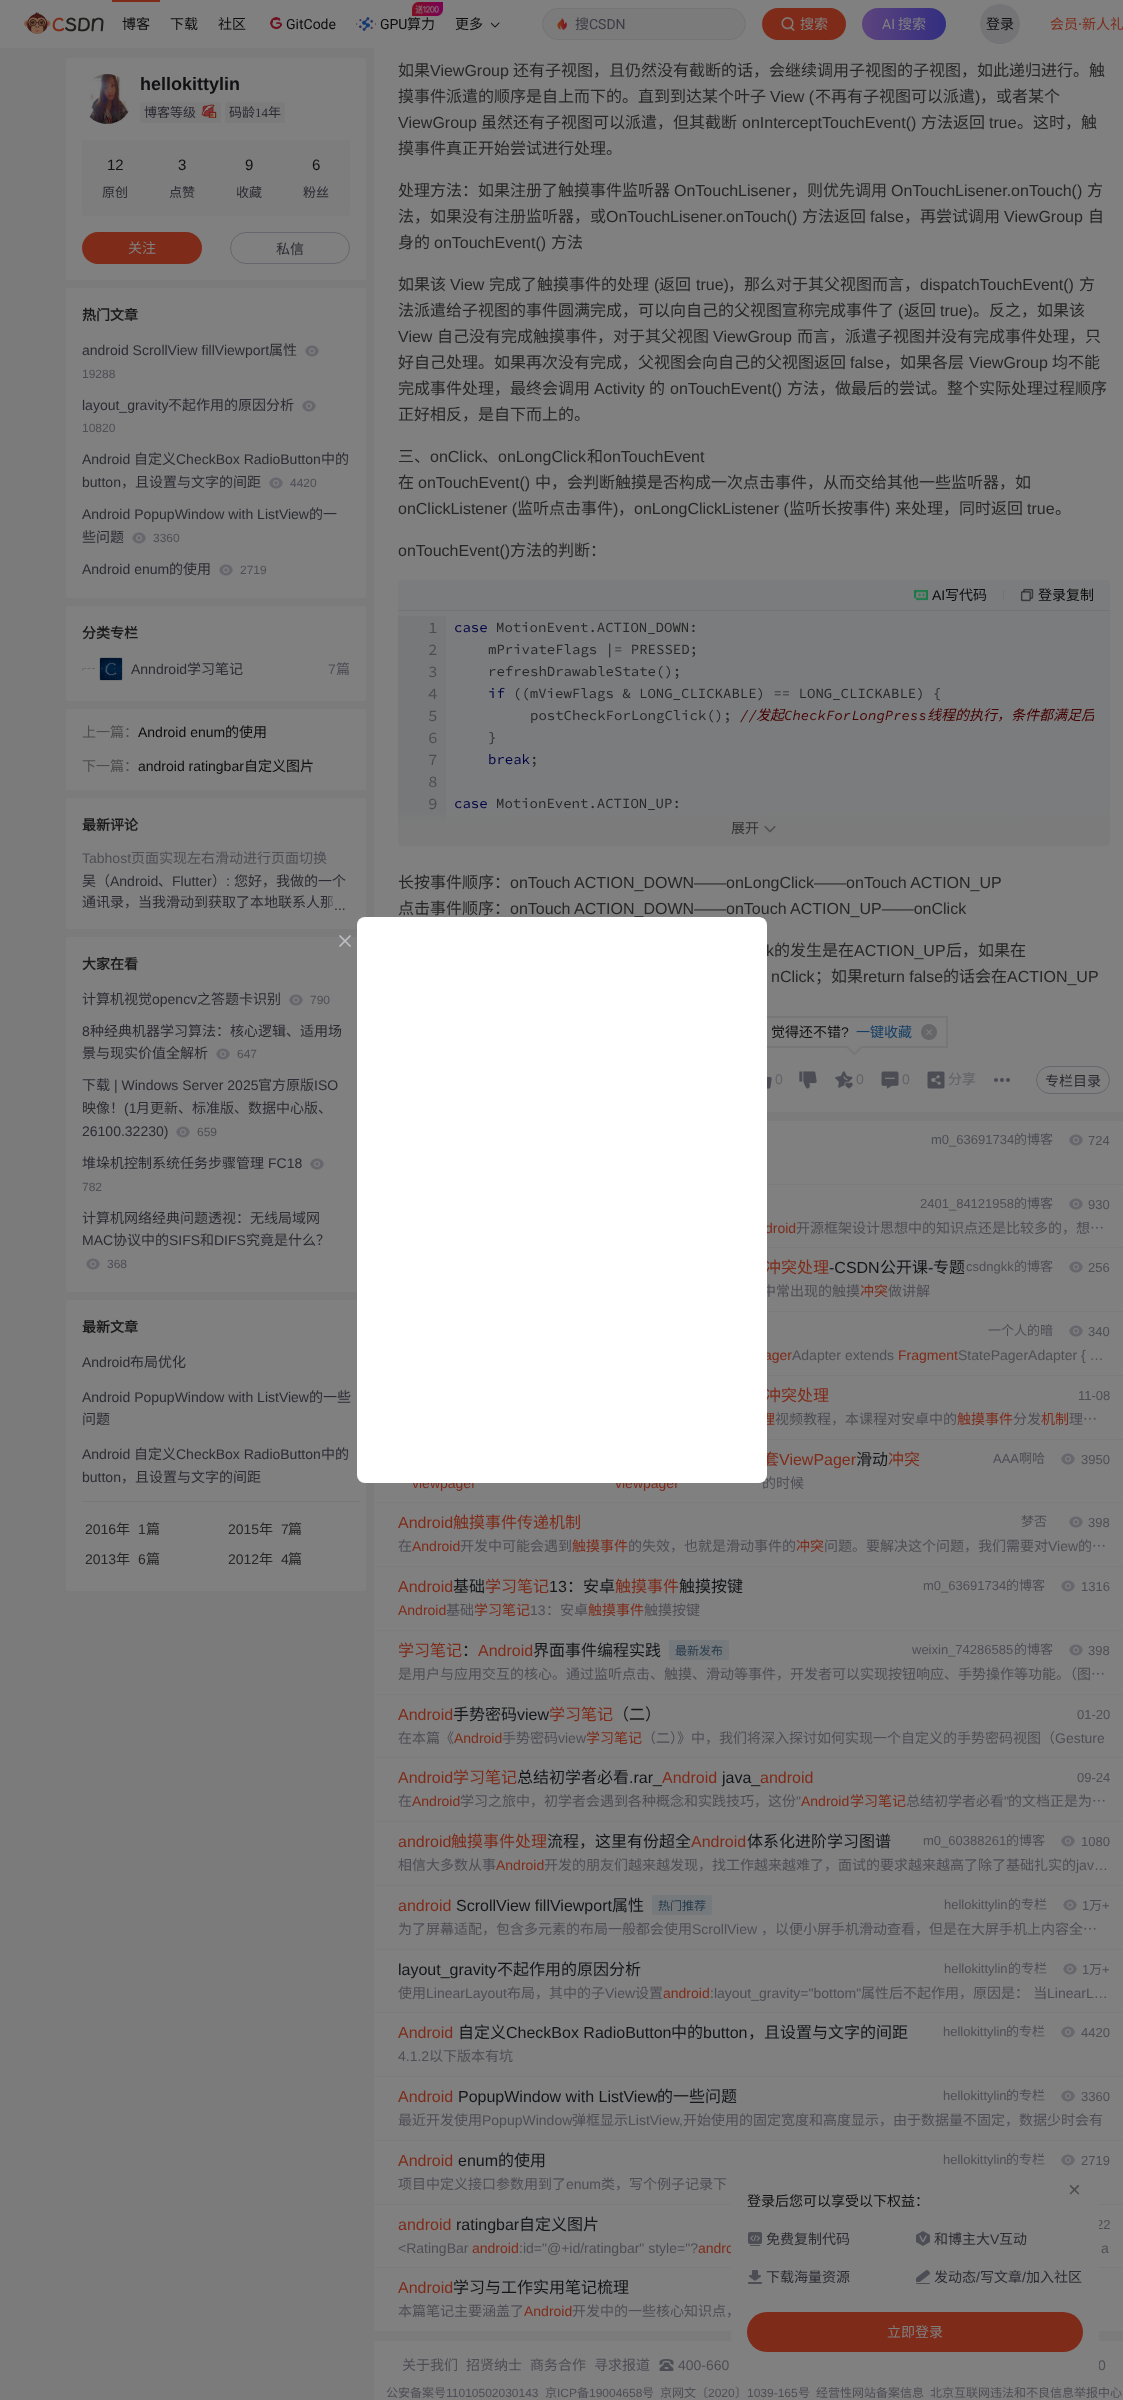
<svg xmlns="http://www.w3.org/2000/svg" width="1123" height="2400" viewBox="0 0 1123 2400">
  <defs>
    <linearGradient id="g1" gradientUnits="userSpaceOnUse" x1="862" y1="24" x2="946" y2="24"><stop offset="0" stop-color="#5d447d"/><stop offset="1" stop-color="#322e80"/></linearGradient>
    <linearGradient id="g2" gradientUnits="userSpaceOnUse" x1="754" y1="810" x2="754" y2="846"><stop offset="0" stop-color="#7b7b7b" stop-opacity="0"/><stop offset="0.34" stop-color="#7b7b7b" stop-opacity="0.9"/><stop offset="1" stop-color="#7b7b7b"/></linearGradient>
    <linearGradient id="g3" gradientUnits="userSpaceOnUse" x1="326" y1="904" x2="350" y2="904"><stop offset="0" stop-color="#808080" stop-opacity="0"/><stop offset="0.4" stop-color="#808080"/></linearGradient>
    <clipPath id="clip1"><rect x="454" y="616" width="640" height="550" rx="4"/></clipPath>
  </defs>
  <rect width="100%" height="100%" fill="#7b7b7c"/>
  <path d="M0 0h1123v48H0z" fill="#808080"/>
  <image x="24" y="12" width="80" height="22" href="img/1.png"/>
  <path d="M112 0h48v2H112z" fill="#7e2b19"/>
  <image x="270" y="17" width="13" height="13" href="img/2.png"/>
  <image x="412" y="2" width="31" height="14" href="img/3.png"/>
  <image x="356" y="17" width="20" height="14" href="img/4.png"/>
  <image x="491" y="22" width="9" height="6" href="img/5.png"/>
  <rect x="542.5" y="8.5" width="203" height="31" rx="15.5" fill="#7b7b7c" stroke="#747477"/>
  <image x="557" y="18" width="10" height="12" href="img/6.png"/>
  <rect x="762" y="8" width="84" height="32" rx="16" fill="#7e2b19"/>
  <image x="781" y="17" width="14" height="15" href="img/7.png"/>
  <rect x="862" y="8" width="84" height="32" rx="16" fill="url(#g1)"/>
  <circle cx="1000" cy="24" r="20" fill="#747477"/>
  <rect x="66" y="58" width="300" height="222" rx="2" fill="#808080"/>
  <image x="82" y="74" width="47" height="50" href="img/8.png"/>
  <rect x="140" y="102" width="81" height="21" rx="2" fill="#7b7b7c"/>
  <image x="201" y="104" width="16" height="14" href="img/9.png"/>
  <rect x="225" y="102" width="60" height="21" rx="2" fill="#7b7b7c"/>
  <rect x="82" y="140" width="268" height="76" rx="2" fill="#7d7d7d"/>
  <rect x="82" y="232" width="120" height="32" rx="16" fill="#7e2b19"/>
  <rect x="230.5" y="232.5" width="119" height="31" rx="15.5" fill="none" stroke="#66666c"/>
  <rect x="66" y="288" width="300" height="310" rx="2" fill="#808080"/>
  <image x="305" y="345" width="14" height="12" href="img/10.png"/>
  <image x="302" y="400" width="14" height="12" href="img/10.png"/>
  <image x="269" y="477" width="14" height="12" href="img/10.png"/>
  <image x="132" y="532" width="14" height="12" href="img/10.png"/>
  <image x="219" y="564" width="14" height="12" href="img/10.png"/>
  <rect x="66" y="606" width="300" height="95" rx="2" fill="#808080"/>
  <path d="M82.5 657V681" fill="none" stroke="#66666c" stroke-dasharray="3 2.25"/>
  <path d="M82 657h1v12H82z" fill="#808080"/>
  <path d="M83 668.5H86M87.5 668.5H90.5M92 668.5H95" fill="none" stroke="#66666c"/>
  <rect x="99.5" y="657.5" width="23" height="23" rx="1.5" fill="none" stroke="#747477"/>
  <image x="100" y="658" width="22" height="22" href="img/11.png"/>
  <path d="M82 673h1v12H82z" fill="#808080"/>
  <path d="M66 709h300v81H66z" fill="#808080"/>
  <rect x="66" y="798" width="300" height="131" rx="2" fill="#808080"/>
  <rect x="66" y="937" width="300" height="355" rx="2" fill="#808080"/>
  <image x="289" y="994" width="14" height="12" href="img/10.png"/>
  <image x="216" y="1048" width="14" height="12" href="img/10.png"/>
  <image x="176" y="1126" width="14" height="12" href="img/10.png"/>
  <image x="310" y="1158" width="14" height="12" href="img/10.png"/>
  <image x="86" y="1258" width="14" height="12" href="img/10.png"/>
  <rect x="66" y="1300" width="300" height="291" rx="2" fill="#808080"/>
  <path d="M82 1501h278v1H82z" fill="#787878"/>
  <path d="M374 48h749v1000H374z" fill="#808080"/>
  <rect x="398" y="580" width="712" height="266" rx="5" fill="#7b7c7d"/>
  <path d="M398 610h712v1H398z" fill="#737373"/>
  <image x="914" y="589" width="14" height="12" href="img/12.png"/>
  <path d="M1003 590h1v10H1003z" fill="#737373"/>
  <image x="1020" y="588" width="14" height="14" href="img/13.png"/>
  <path d="M398 616H446V846H403C400 846 398 844 398 841Z" fill="#77787a"/>
  <path d="M398 810H1110V841C1110 844 1108 846 1105 846H403C400 846 398 844 398 841Z" fill="url(#g2)"/>
  <image x="764" y="825" width="12" height="8" href="img/14.png"/>
  <path d="M767 1048h356v64H767z" fill="#808080"/>
  <path d="M761 1017h186v30H761z" fill="none" stroke="#777778" stroke-width="2"/>
  <image x="921" y="1024" width="16" height="16" href="img/15.png"/>
  <path d="M867 1043L854.5 1055.5L841.5 1043L854.5 1030Z" fill="#808080"/>
  <path d="M865.5 1043L854.5 1054L843 1043L854.5 1031.5Z" fill="none" stroke="#777778" stroke-width="2"/>
  <path d="M842 1030h25v16H842z" fill="#808080"/>
  <image x="835" y="1071" width="18" height="18" href="img/16.png"/>
  <image x="767" y="1076" width="5" height="13" href="img/17.png"/>
  <image x="799" y="1071" width="18" height="18" href="img/18.png"/>
  <image x="881" y="1071" width="18" height="18" href="img/19.png"/>
  <image x="927" y="1071" width="18" height="18" href="img/20.png"/>
  <image x="994" y="1078" width="16" height="4" href="img/21.png"/>
  <rect x="1036.5" y="1066.5" width="73" height="27" rx="13.5" fill="none" stroke="#66666c"/>
  <path d="M767 1121h356v63H767z" fill="#808080"/>
  <image x="1069" y="1134" width="14" height="12" href="img/10.png"/>
  <path d="M767 1185h356v62H767z" fill="#808080"/>
  <image x="1069" y="1198" width="14" height="12" href="img/10.png"/>
  <path d="M767 1248h356v63H767z" fill="#808080"/>
  <image x="1069" y="1261" width="14" height="12" href="img/10.png"/>
  <path d="M767 1312h356v63H767z" fill="#808080"/>
  <image x="1069" y="1325" width="14" height="12" href="img/10.png"/>
  <path d="M767 1376h356v63H767z" fill="#808080"/>
  <path d="M374 1440h749v62H374z" fill="#808080"/>
  <image x="1061" y="1453" width="14" height="12" href="img/10.png"/>
  <path d="M374 1503h749v63H374z" fill="#808080"/>
  <image x="1069" y="1516" width="14" height="12" href="img/10.png"/>
  <path d="M374 1567h749v63H374z" fill="#808080"/>
  <image x="1061" y="1580" width="14" height="12" href="img/10.png"/>
  <path d="M374 1631h749v63H374z" fill="#808080"/>
  <rect x="669" y="1640" width="60" height="20" rx="2" fill="#76797c"/>
  <image x="1069" y="1644" width="14" height="12" href="img/10.png"/>
  <path d="M374 1695h749v62H374z" fill="#808080"/>
  <path d="M374 1758h749v63H374z" fill="#808080"/>
  <path d="M374 1822h749v63H374z" fill="#808080"/>
  <image x="1061" y="1835" width="14" height="12" href="img/10.png"/>
  <path d="M374 1886h749v63H374z" fill="#808080"/>
  <rect x="652" y="1895" width="60" height="20" rx="2" fill="#76797c"/>
  <image x="1063" y="1899" width="14" height="12" href="img/10.png"/>
  <path d="M374 1950h749v62H374z" fill="#808080"/>
  <image x="1063" y="1963" width="14" height="12" href="img/10.png"/>
  <path d="M374 2013h749v63H374z" fill="#808080"/>
  <image x="1061" y="2026" width="14" height="12" href="img/10.png"/>
  <path d="M374 2077h749v63H374z" fill="#808080"/>
  <image x="1061" y="2090" width="14" height="12" href="img/10.png"/>
  <path d="M374 2141h749v63H374z" fill="#808080"/>
  <image x="1061" y="2154" width="14" height="12" href="img/10.png"/>
  <path d="M374 2205h749v62H374z" fill="#808080"/>
  <path d="M374 2268h749v63H374z" fill="#808080"/>
  <path d="M374 2341h749v59H374z" fill="#808080"/>
  <image x="659" y="2359" width="15" height="12" href="img/22.png"/>
  <image x="339" y="935" width="12" height="12" href="img/23.png"/>
  <g font-family="Noto Sans CJK SC" font-size="14" fill="#0d0d0d">
    <text x="122" y="29">博客</text>
    <text x="170" y="29">下载</text>
    <text x="218" y="29">社区</text>
  </g>
  <g font-family="Roboto" font-size="14" fill="#0d0d0d">
    <text x="286" y="29">GitCode</text>
    <text x="380" y="29">GPU</text>
  </g>
  <g font-family="Noto Sans CJK SC" font-size="14" fill="#0d0d0d">
    <text x="407" y="29">算力</text>
    <text x="455" y="29">更多</text>
  </g>
  <text x="575" y="29" font-family="Noto Sans CJK SC" font-size="14" fill="#3c3c44">搜</text>
  <text x="589" y="29" font-family="Roboto" font-size="14" fill="#3c3c44">CSDN</text>
  <text x="800" y="29" font-family="Noto Sans CJK SC" font-size="14" fill="#808080">搜索</text>
  <text x="882" y="29" font-family="Roboto" font-size="14" fill="#808080">AI</text>
  <text x="898" y="29" font-family="Noto Sans CJK SC" font-size="14" fill="#808080">搜索</text>
  <text x="986" y="29" font-family="Noto Sans CJK SC" font-size="14" fill="#111113">登录</text>
  <text x="1050" y="29" font-family="Noto Sans CJK SC" font-size="14" fill="#7e2b19">会员</text>
  <text x="1078" y="29" font-family="Roboto" font-size="14" font-weight="500" fill="#7e2b19">·</text>
  <text x="1082" y="29" font-family="Noto Sans CJK SC" font-size="14" fill="#7e2b19">新人礼</text>
  <text x="140" y="90" font-family="Liberation Sans" font-size="18" font-weight="bold" fill="#111113">hellokittylin</text>
  <g font-family="Noto Sans CJK SC" font-size="13" fill="#2b2b33">
    <text x="144" y="117">博客等级</text>
    <text x="229" y="117">码龄</text>
  </g>
  <text x="255" y="117" font-family="Liberation Serif" font-size="13" fill="#2b2b33">14</text>
  <text x="268" y="117" font-family="Noto Sans CJK SC" font-size="13" fill="#2b2b33">年</text>
  <text x="107" y="170" font-family="Liberation Sans" font-size="15" fill="#111113">12</text>
  <text x="102" y="197" font-family="Noto Sans CJK SC" font-size="13" fill="#2b2b33">原创</text>
  <text x="178" y="170" font-family="Liberation Sans" font-size="15" fill="#111113">3</text>
  <text x="169" y="197" font-family="Noto Sans CJK SC" font-size="13" fill="#2b2b33">点赞</text>
  <text x="245" y="170" font-family="Liberation Sans" font-size="15" fill="#111113">9</text>
  <text x="236" y="197" font-family="Noto Sans CJK SC" font-size="13" fill="#2b2b33">收藏</text>
  <text x="312" y="170" font-family="Liberation Sans" font-size="15" fill="#111113">6</text>
  <text x="303" y="197" font-family="Noto Sans CJK SC" font-size="13" fill="#2b2b33">粉丝</text>
  <text x="128" y="253" font-family="Noto Sans CJK SC" font-size="14" fill="#808080">关注</text>
  <text x="276" y="254" font-family="Noto Sans CJK SC" font-size="14" fill="#2b2b33">私信</text>
  <text x="82" y="320" font-family="Noto Sans CJK SC" font-size="14" font-weight="bold" fill="#1a1a1a">热门文章</text>
  <text x="82" y="355" font-family="Liberation Sans" font-size="14" fill="#2b2b33">android ScrollView fillViewport</text>
  <text x="269" y="355" font-family="Noto Sans CJK SC" font-size="14" fill="#2b2b33">属性</text>
  <text x="82" y="378" font-family="Liberation Sans" font-size="12" fill="#4d4d55">19288</text>
  <text x="82" y="410" font-family="Liberation Sans" font-size="14" fill="#2b2b33">layout_gravity</text>
  <text x="168" y="410" font-family="Noto Sans CJK SC" font-size="14" fill="#2b2b33">不起作用的原因分析</text>
  <text x="82" y="432" font-family="Liberation Sans" font-size="12" fill="#4d4d55">10820</text>
  <text x="82" y="464" font-family="Liberation Sans" font-size="14" fill="#2b2b33">Android</text>
  <text x="134" y="464" font-family="Noto Sans CJK SC" font-size="14" fill="#2b2b33">自定义</text>
  <text x="176" y="464" font-family="Liberation Sans" font-size="14" fill="#2b2b33">CheckBox RadioButton</text>
  <text x="321" y="464" font-family="Noto Sans CJK SC" font-size="14" fill="#2b2b33">中的</text>
  <text x="82" y="487" font-family="Liberation Sans" font-size="14" fill="#2b2b33">button</text>
  <text x="121" y="487" font-family="Noto Sans CJK SC" font-size="14" fill="#2b2b33">，且设置与文字的间距</text>
  <text x="290" y="487" font-family="Liberation Sans" font-size="12" fill="#4d4d55">4420</text>
  <text x="82" y="519" font-family="Liberation Sans" font-size="14" fill="#2b2b33">Android PopupWindow with ListView</text>
  <g font-family="Noto Sans CJK SC" font-size="14" fill="#2b2b33">
    <text x="309" y="519">的一</text>
    <text x="82" y="542">些问题</text>
  </g>
  <text x="153" y="542" font-family="Liberation Sans" font-size="12" fill="#4d4d55">3360</text>
  <text x="82" y="574" font-family="Liberation Sans" font-size="14" fill="#2b2b33">Android enum</text>
  <text x="169" y="574" font-family="Noto Sans CJK SC" font-size="14" fill="#2b2b33">的使用</text>
  <text x="240" y="574" font-family="Liberation Sans" font-size="12" fill="#4d4d55">2719</text>
  <text x="82" y="638" font-family="Noto Sans CJK SC" font-size="14" font-weight="bold" fill="#1a1a1a">分类专栏</text>
  <text x="131" y="674" font-family="Liberation Sans" font-size="14" fill="#2b2b33">Anndroid</text>
  <text x="187" y="674" font-family="Noto Sans CJK SC" font-size="14" fill="#2b2b33">学习笔记</text>
  <text x="328" y="674" font-family="Liberation Sans" font-size="14" fill="#4d4d55">7</text>
  <text x="336" y="674" font-family="Noto Sans CJK SC" font-size="14" fill="#4d4d55">篇</text>
  <text x="82" y="737" font-family="Noto Sans CJK SC" font-size="14" fill="#4d4d4d">上一篇：</text>
  <text x="138" y="737" font-family="Liberation Sans" font-size="14" fill="#0d0d0d">Android enum</text>
  <text x="225" y="737" font-family="Noto Sans CJK SC" font-size="14" fill="#0d0d0d">的使用</text>
  <text x="82" y="771" font-family="Noto Sans CJK SC" font-size="14" fill="#4d4d4d">下一篇：</text>
  <text x="138" y="771" font-family="Liberation Sans" font-size="14" fill="#0d0d0d">android ratingbar</text>
  <text x="244" y="771" font-family="Noto Sans CJK SC" font-size="14" fill="#0d0d0d">自定义图片</text>
  <text x="82" y="830" font-family="Noto Sans CJK SC" font-size="14" font-weight="bold" fill="#1a1a1a">最新评论</text>
  <text x="82" y="863" font-family="Liberation Sans" font-size="14" fill="#4d4d55">Tabhost</text>
  <text x="131" y="863" font-family="Noto Sans CJK SC" font-size="14" fill="#4d4d55">页面实现左右滑动进行页面切换</text>
  <text x="82" y="886" font-family="Noto Sans CJK SC" font-size="14" fill="#2b2b33">吴（</text>
  <text x="110" y="886" font-family="Liberation Sans" font-size="14" fill="#2b2b33">Android</text>
  <text x="158" y="886" font-family="Noto Sans CJK SC" font-size="14" fill="#2b2b33">、</text>
  <text x="172" y="886" font-family="Liberation Sans" font-size="14" fill="#2b2b33">Flutter</text>
  <text x="212" y="886" font-family="Noto Sans CJK SC" font-size="14" fill="#2b2b33">）</text>
  <text x="226" y="886" font-family="Liberation Sans" font-size="14" fill="#2b2b33">:</text>
  <g font-family="Noto Sans CJK SC" font-size="14" fill="#2b2b33">
    <text x="234" y="886">您好，我做的一个</text>
    <text x="82" y="907">通讯录，当我滑动到获取了本地联系人那</text>
  </g>
  <path d="M326 896h8v12H326z" fill="url(#g3)"/>
  <text x="334" y="910" font-family="Liberation Sans" font-size="14" fill="#2b2b33">...</text>
  <text x="82" y="969" font-family="Noto Sans CJK SC" font-size="14" font-weight="bold" fill="#1a1a1a">大家在看</text>
  <text x="82" y="1004" font-family="Noto Sans CJK SC" font-size="14" fill="#2b2b33">计算机视觉</text>
  <text x="152" y="1004" font-family="Liberation Sans" font-size="14" fill="#2b2b33">opencv</text>
  <text x="197" y="1004" font-family="Noto Sans CJK SC" font-size="14" fill="#2b2b33">之答题卡识别</text>
  <text x="310" y="1004" font-family="Liberation Sans" font-size="12" fill="#4d4d55">790</text>
  <text x="82" y="1036" font-family="Liberation Sans" font-size="14" fill="#2b2b33">8</text>
  <g font-family="Noto Sans CJK SC" font-size="14" fill="#2b2b33">
    <text x="90" y="1036">种经典机器学习算法：核心逻辑、适用场</text>
    <text x="82" y="1058">景与现实价值全解析</text>
  </g>
  <text x="237" y="1058" font-family="Liberation Sans" font-size="12" fill="#4d4d55">647</text>
  <text x="82" y="1090" font-family="Noto Sans CJK SC" font-size="14" fill="#2b2b33">下载</text>
  <text x="114" y="1090" font-family="Liberation Sans" font-size="14" fill="#2b2b33">| Windows Server 2025</text>
  <text x="258" y="1090" font-family="Noto Sans CJK SC" font-size="14" fill="#2b2b33">官方原版</text>
  <text x="314" y="1090" font-family="Liberation Sans" font-size="14" fill="#2b2b33">ISO</text>
  <text x="82" y="1113" font-family="Noto Sans CJK SC" font-size="14" fill="#2b2b33">映像！</text>
  <text x="124" y="1113" font-family="Liberation Sans" font-size="14" fill="#2b2b33">(1</text>
  <text x="136" y="1113" font-family="Noto Sans CJK SC" font-size="14" fill="#2b2b33">月更新、标准版、数据中心版、</text>
  <text x="82" y="1136" font-family="Liberation Sans" font-size="14" fill="#2b2b33">26100.32230)</text>
  <text x="197" y="1136" font-family="Liberation Sans" font-size="12" fill="#4d4d55">659</text>
  <text x="82" y="1168" font-family="Noto Sans CJK SC" font-size="14" fill="#2b2b33">堆垛机控制系统任务步骤管理</text>
  <text x="268" y="1168" font-family="Liberation Sans" font-size="14" fill="#2b2b33">FC18</text>
  <text x="82" y="1191" font-family="Liberation Sans" font-size="12" fill="#4d4d55">782</text>
  <text x="82" y="1223" font-family="Noto Sans CJK SC" font-size="14" fill="#2b2b33">计算机网络经典问题透视：无线局域网</text>
  <text x="82" y="1245" font-family="Liberation Sans" font-size="14" fill="#2b2b33">MAC</text>
  <text x="113" y="1245" font-family="Noto Sans CJK SC" font-size="14" fill="#2b2b33">协议中的</text>
  <text x="169" y="1245" font-family="Liberation Sans" font-size="14" fill="#2b2b33">SIFS</text>
  <text x="200" y="1245" font-family="Noto Sans CJK SC" font-size="14" fill="#2b2b33">和</text>
  <text x="214" y="1245" font-family="Liberation Sans" font-size="14" fill="#2b2b33">DIFS</text>
  <text x="246" y="1245" font-family="Noto Sans CJK SC" font-size="14" fill="#2b2b33">究竟是什么？</text>
  <text x="107" y="1268" font-family="Liberation Sans" font-size="12" fill="#4d4d55">368</text>
  <text x="82" y="1332" font-family="Noto Sans CJK SC" font-size="14" font-weight="bold" fill="#1a1a1a">最新文章</text>
  <text x="82" y="1367" font-family="Liberation Sans" font-size="14" fill="#2b2b33">Android</text>
  <text x="130" y="1367" font-family="Noto Sans CJK SC" font-size="14" fill="#2b2b33">布局优化</text>
  <text x="82" y="1402" font-family="Liberation Sans" font-size="14" fill="#2b2b33">Android PopupWindow with ListView</text>
  <g font-family="Noto Sans CJK SC" font-size="14" fill="#2b2b33">
    <text x="309" y="1402">的一些</text>
    <text x="82" y="1424">问题</text>
  </g>
  <text x="82" y="1459" font-family="Liberation Sans" font-size="14" fill="#2b2b33">Android</text>
  <text x="134" y="1459" font-family="Noto Sans CJK SC" font-size="14" fill="#2b2b33">自定义</text>
  <text x="176" y="1459" font-family="Liberation Sans" font-size="14" fill="#2b2b33">CheckBox RadioButton</text>
  <text x="321" y="1459" font-family="Noto Sans CJK SC" font-size="14" fill="#2b2b33">中的</text>
  <text x="82" y="1482" font-family="Liberation Sans" font-size="14" fill="#2b2b33">button</text>
  <text x="121" y="1482" font-family="Noto Sans CJK SC" font-size="14" fill="#2b2b33">，且设置与文字的间距</text>
  <text x="85" y="1534" font-family="Liberation Sans" font-size="14" fill="#272727">2016</text>
  <text x="116" y="1534" font-family="Noto Sans CJK SC" font-size="14" fill="#272727">年</text>
  <text x="138" y="1534" font-family="Liberation Sans" font-size="14" fill="#272727">1</text>
  <text x="146" y="1534" font-family="Noto Sans CJK SC" font-size="14" fill="#272727">篇</text>
  <text x="228" y="1534" font-family="Liberation Sans" font-size="14" fill="#272727">2015</text>
  <text x="259" y="1534" font-family="Noto Sans CJK SC" font-size="14" fill="#272727">年</text>
  <text x="281" y="1534" font-family="Liberation Sans" font-size="14" fill="#272727">7</text>
  <text x="288" y="1534" font-family="Noto Sans CJK SC" font-size="14" fill="#272727">篇</text>
  <text x="85" y="1564" font-family="Liberation Sans" font-size="14" fill="#272727">2013</text>
  <text x="116" y="1564" font-family="Noto Sans CJK SC" font-size="14" fill="#272727">年</text>
  <text x="138" y="1564" font-family="Liberation Sans" font-size="14" fill="#272727">6</text>
  <text x="146" y="1564" font-family="Noto Sans CJK SC" font-size="14" fill="#272727">篇</text>
  <text x="228" y="1564" font-family="Liberation Sans" font-size="14" fill="#272727">2012</text>
  <text x="259" y="1564" font-family="Noto Sans CJK SC" font-size="14" fill="#272727">年</text>
  <text x="281" y="1564" font-family="Liberation Sans" font-size="14" fill="#272727">4</text>
  <text x="288" y="1564" font-family="Noto Sans CJK SC" font-size="14" fill="#272727">篇</text>
  <text x="398" y="76" font-family="Noto Sans CJK SC" font-size="16" fill="#272727">如果</text>
  <text x="430" y="76" font-family="Liberation Sans" font-size="16" fill="#272727">ViewGroup</text>
  <g font-family="Noto Sans CJK SC" font-size="16" fill="#272727">
    <text x="513" y="76">还有子视图，且仍然没有截断的话，会继续调用子视图的子视图，如此递归进行。触</text>
    <text x="398" y="102">摸事件派遣的顺序是自上而下的。直到到达某个叶子</text>
  </g>
  <text x="770" y="102" font-family="Liberation Sans" font-size="16" fill="#272727">View (</text>
  <text x="815" y="102" font-family="Noto Sans CJK SC" font-size="16" fill="#272727">不再有子视图可以派遣</text>
  <text x="975" y="102" font-family="Liberation Sans" font-size="16" fill="#272727">)</text>
  <text x="980" y="102" font-family="Noto Sans CJK SC" font-size="16" fill="#272727">，或者某个</text>
  <text x="398" y="128" font-family="Liberation Sans" font-size="16" fill="#272727">ViewGroup</text>
  <text x="481" y="128" font-family="Noto Sans CJK SC" font-size="16" fill="#272727">虽然还有子视图可以派遣，但其截断</text>
  <text x="742" y="128" font-family="Liberation Sans" font-size="16" fill="#272727">onInterceptTouchEvent()</text>
  <text x="921" y="128" font-family="Noto Sans CJK SC" font-size="16" fill="#272727">方法返回</text>
  <text x="989" y="128" font-family="Liberation Sans" font-size="16" fill="#272727">true</text>
  <g font-family="Noto Sans CJK SC" font-size="16" fill="#272727">
    <text x="1017" y="128">。这时，触</text>
    <text x="398" y="154">摸事件真正开始尝试进行处理。</text>
    <text x="398" y="196">处理方法：如果注册了触摸事件监听器</text>
  </g>
  <text x="674" y="196" font-family="Liberation Sans" font-size="16" fill="#272727">OnTouchLisener</text>
  <text x="791" y="196" font-family="Noto Sans CJK SC" font-size="16" fill="#272727">，则优先调用</text>
  <text x="891" y="196" font-family="Liberation Sans" font-size="16" fill="#272727">OnTouchLisener.onTouch()</text>
  <g font-family="Noto Sans CJK SC" font-size="16" fill="#272727">
    <text x="1087" y="196">方</text>
    <text x="398" y="222">法，如果没有注册监听器，或</text>
  </g>
  <text x="606" y="222" font-family="Liberation Sans" font-size="16" fill="#272727">OnTouchLisener.onTouch()</text>
  <text x="802" y="222" font-family="Noto Sans CJK SC" font-size="16" fill="#272727">方法返回</text>
  <text x="870" y="222" font-family="Liberation Sans" font-size="16" fill="#272727">false</text>
  <text x="904" y="222" font-family="Noto Sans CJK SC" font-size="16" fill="#272727">，再尝试调用</text>
  <text x="1004" y="222" font-family="Liberation Sans" font-size="16" fill="#272727">ViewGroup</text>
  <g font-family="Noto Sans CJK SC" font-size="16" fill="#272727">
    <text x="1088" y="222">自</text>
    <text x="398" y="248">身的</text>
  </g>
  <text x="434" y="248" font-family="Liberation Sans" font-size="16" fill="#272727">onTouchEvent()</text>
  <g font-family="Noto Sans CJK SC" font-size="16" fill="#272727">
    <text x="551" y="248">方法</text>
    <text x="398" y="290">如果该</text>
  </g>
  <text x="450" y="290" font-family="Liberation Sans" font-size="16" fill="#272727">View</text>
  <text x="489" y="290" font-family="Noto Sans CJK SC" font-size="16" fill="#272727">完成了触摸事件的处理</text>
  <text x="654" y="290" font-family="Liberation Sans" font-size="16" fill="#272727">(</text>
  <text x="659" y="290" font-family="Noto Sans CJK SC" font-size="16" fill="#272727">返回</text>
  <text x="696" y="290" font-family="Liberation Sans" font-size="16" fill="#272727">true)</text>
  <text x="728" y="290" font-family="Noto Sans CJK SC" font-size="16" fill="#272727">，那么对于其父视图而言，</text>
  <text x="920" y="290" font-family="Liberation Sans" font-size="16" fill="#272727">dispatchTouchEvent()</text>
  <g font-family="Noto Sans CJK SC" font-size="16" fill="#272727">
    <text x="1079" y="290">方</text>
    <text x="398" y="316">法派遣给子视图的事件圆满完成，可以向自己的父视图宣称完成事件了</text>
  </g>
  <text x="898" y="316" font-family="Liberation Sans" font-size="16" fill="#272727">(</text>
  <text x="904" y="316" font-family="Noto Sans CJK SC" font-size="16" fill="#272727">返回</text>
  <text x="940" y="316" font-family="Liberation Sans" font-size="16" fill="#272727">true)</text>
  <text x="973" y="316" font-family="Noto Sans CJK SC" font-size="16" fill="#272727">。反之，如果该</text>
  <text x="398" y="342" font-family="Liberation Sans" font-size="16" fill="#272727">View</text>
  <text x="437" y="342" font-family="Noto Sans CJK SC" font-size="16" fill="#272727">自己没有完成触摸事件，对于其父视图</text>
  <text x="713" y="342" font-family="Liberation Sans" font-size="16" fill="#272727">ViewGroup</text>
  <g font-family="Noto Sans CJK SC" font-size="16" fill="#272727">
    <text x="797" y="342">而言，派遣子视图并没有完成事件处理，只</text>
    <text x="398" y="368">好自己处理。如果再次没有完成，父视图会向自己的父视图返回</text>
  </g>
  <text x="850" y="368" font-family="Liberation Sans" font-size="16" fill="#272727">false</text>
  <text x="884" y="368" font-family="Noto Sans CJK SC" font-size="16" fill="#272727">，如果各层</text>
  <text x="969" y="368" font-family="Liberation Sans" font-size="16" fill="#272727">ViewGroup</text>
  <g font-family="Noto Sans CJK SC" font-size="16" fill="#272727">
    <text x="1052" y="368">均不能</text>
    <text x="398" y="394">完成事件处理，最终会调用</text>
  </g>
  <text x="594" y="394" font-family="Liberation Sans" font-size="16" fill="#272727">Activity</text>
  <text x="649" y="394" font-family="Noto Sans CJK SC" font-size="16" fill="#272727">的</text>
  <text x="670" y="394" font-family="Liberation Sans" font-size="16" fill="#272727">onTouchEvent()</text>
  <g font-family="Noto Sans CJK SC" font-size="16" fill="#272727">
    <text x="787" y="394">方法，做最后的尝试。整个实际处理过程顺序</text>
    <text x="398" y="420">正好相反，是自下而上的。</text>
    <text x="398" y="462">三、</text>
  </g>
  <text x="430" y="462" font-family="Liberation Sans" font-size="16" fill="#272727">onClick</text>
  <text x="482" y="462" font-family="Noto Sans CJK SC" font-size="16" fill="#272727">、</text>
  <text x="498" y="462" font-family="Liberation Sans" font-size="16" fill="#272727">onLongClick</text>
  <text x="587" y="462" font-family="Noto Sans CJK SC" font-size="16" fill="#272727">和</text>
  <text x="603" y="462" font-family="Liberation Sans" font-size="16" fill="#272727">onTouchEvent</text>
  <text x="398" y="488" font-family="Noto Sans CJK SC" font-size="16" fill="#272727">在</text>
  <text x="418" y="488" font-family="Liberation Sans" font-size="16" fill="#272727">onTouchEvent()</text>
  <text x="535" y="488" font-family="Noto Sans CJK SC" font-size="16" fill="#272727">中，会判断触摸是否构成一次点击事件，从而交给其他一些监听器，如</text>
  <text x="398" y="514" font-family="Liberation Sans" font-size="16" fill="#272727">onClickListener (</text>
  <text x="517" y="514" font-family="Noto Sans CJK SC" font-size="16" fill="#272727">监听点击事件</text>
  <text x="613" y="514" font-family="Liberation Sans" font-size="16" fill="#272727">)</text>
  <text x="618" y="514" font-family="Noto Sans CJK SC" font-size="16" fill="#272727">，</text>
  <text x="634" y="514" font-family="Liberation Sans" font-size="16" fill="#272727">onLongClickListener (</text>
  <text x="789" y="514" font-family="Noto Sans CJK SC" font-size="16" fill="#272727">监听长按事件</text>
  <text x="885" y="514" font-family="Liberation Sans" font-size="16" fill="#272727">)</text>
  <text x="895" y="514" font-family="Noto Sans CJK SC" font-size="16" fill="#272727">来处理，同时返回</text>
  <text x="1027" y="514" font-family="Liberation Sans" font-size="16" fill="#272727">true</text>
  <text x="1055" y="514" font-family="Noto Sans CJK SC" font-size="16" fill="#272727">。</text>
  <text x="398" y="556" font-family="Liberation Sans" font-size="16" fill="#272727">onTouchEvent()</text>
  <text x="510" y="556" font-family="Noto Sans CJK SC" font-size="16" fill="#272727">方法的判断：</text>
  <text x="932" y="600" font-family="Liberation Sans" font-size="14" fill="#0d0d0d">AI</text>
  <g font-family="Noto Sans CJK SC" font-size="14" fill="#0d0d0d">
    <text x="945" y="600">写代码</text>
    <text x="1038" y="600">登录复制</text>
  </g>
  <g font-family="Source Code Pro" font-size="16" fill="#4d4d4d">
    <text x="428" y="633">1</text>
    <text x="428" y="655">2</text>
    <text x="428" y="677">3</text>
    <text x="428" y="699">4</text>
    <text x="428" y="721">5</text>
    <text x="428" y="743">6</text>
    <text x="428" y="765">7</text>
    <text x="428" y="787">8</text>
    <text x="428" y="809">9</text>
  </g>
  <text x="454" y="632" font-family="Source Code Pro" font-size="14" fill="#004">case</text>
  <g font-family="Source Code Pro" font-size="14" fill="#272727">
    <text x="496" y="632">MotionEvent.ACTION_DOWN:</text>
    <text x="488" y="654">mPrivateFlags |= PRESSED;</text>
    <text x="488" y="676">refreshDrawableState();</text>
  </g>
  <text x="488" y="698" font-family="Source Code Pro" font-size="14" fill="#004">if</text>
  <g font-family="Source Code Pro" font-size="14" fill="#272727">
    <text x="513" y="698">((mViewFlags &amp; LONG_CLICKABLE) == LONG_CLICKABLE) {</text>
    <text x="530" y="720">postCheckForLongClick();</text>
  </g>
  <text x="740" y="720" font-family="Source Code Pro" font-size="14" font-style="italic" fill="#400">//</text>
  <text x="756" y="720" font-family="Noto Sans CJK SC" font-size="14" font-style="italic" fill="#400">发起</text>
  <text x="784" y="720" font-family="Source Code Pro" font-size="14" font-style="italic" fill="#400">CheckForLongPress</text>
  <g clip-path="url(#clip1)">
    <text x="927" y="720" font-family="Noto Sans CJK SC" font-size="14" font-style="italic" fill="#400">线程的执行，条件都满足后</text>
  </g>
  <text x="488" y="742" font-family="Source Code Pro" font-size="14" fill="#272727">}</text>
  <text x="488" y="764" font-family="Source Code Pro" font-size="14" fill="#004">break</text>
  <text x="530" y="764" font-family="Source Code Pro" font-size="14" fill="#272727">;</text>
  <text x="454" y="808" font-family="Source Code Pro" font-size="14" fill="#004">case</text>
  <text x="496" y="808" font-family="Source Code Pro" font-size="14" fill="#272727">MotionEvent.ACTION_UP:</text>
  <text x="731" y="833" font-family="Noto Sans CJK SC" font-size="14" fill="#333">展开</text>
  <text x="398" y="888" font-family="Noto Sans CJK SC" font-size="16" fill="#272727">长按事件顺序：</text>
  <text x="510" y="888" font-family="Liberation Sans" font-size="16" fill="#272727">onTouch ACTION_DOWN——onLongClick——onTouch ACTION_UP</text>
  <text x="398" y="914" font-family="Noto Sans CJK SC" font-size="16" fill="#272727">点击事件顺序：</text>
  <g font-family="Liberation Sans" font-size="16" fill="#272727">
    <text x="510" y="914">onTouch ACTION_DOWN——onTouch ACTION_UP——onClick</text>
    <text x="766" y="956">k</text>
  </g>
  <text x="774" y="956" font-family="Noto Sans CJK SC" font-size="16" fill="#272727">的发生是在</text>
  <text x="854" y="956" font-family="Liberation Sans" font-size="16" fill="#272727">ACTION_UP</text>
  <text x="946" y="956" font-family="Noto Sans CJK SC" font-size="16" fill="#272727">后，如果在</text>
  <text x="771" y="982" font-family="Liberation Sans" font-size="16" fill="#272727">nClick</text>
  <text x="815" y="982" font-family="Noto Sans CJK SC" font-size="16" fill="#272727">；如果</text>
  <text x="863" y="982" font-family="Liberation Sans" font-size="16" fill="#272727">return false</text>
  <text x="943" y="982" font-family="Noto Sans CJK SC" font-size="16" fill="#272727">的话会在</text>
  <text x="1007" y="982" font-family="Liberation Sans" font-size="16" fill="#272727">ACTION_UP</text>
  <text x="771" y="1037" font-family="Noto Sans CJK SC" font-size="14" fill="#111113">觉得还不错</text>
  <text x="841" y="1037" font-family="Liberation Sans" font-size="14" fill="#111113">?</text>
  <text x="856" y="1037" font-family="Noto Sans CJK SC" font-size="14" fill="#143e66">一键收藏</text>
  <g font-family="Liberation Sans" font-size="14" fill="#616166">
    <text x="856" y="1084">0</text>
    <text x="775" y="1084">0</text>
    <text x="902" y="1084">0</text>
  </g>
  <text x="948" y="1084" font-family="Noto Sans CJK SC" font-size="14" fill="#616166">分享</text>
  <text x="1045" y="1086" font-family="Noto Sans CJK SC" font-size="14" fill="#2b2b33">专栏目录</text>
  <text x="931" y="1144" font-family="Liberation Sans" font-size="13" fill="#4d4d55">m0_63691734</text>
  <text x="1014" y="1144" font-family="Noto Sans CJK SC" font-size="13" fill="#4d4d55">的博客</text>
  <g font-family="Liberation Sans" font-size="13" fill="#4d4d55">
    <text x="1088" y="1145">724</text>
    <text x="920" y="1208">2401_84121958</text>
  </g>
  <text x="1014" y="1208" font-family="Noto Sans CJK SC" font-size="13" fill="#4d4d55">的博客</text>
  <text x="1088" y="1209" font-family="Liberation Sans" font-size="13" fill="#4d4d55">930</text>
  <text x="765" y="1233" font-family="Liberation Sans" font-size="14" fill="#7e2b19">droid</text>
  <text x="796" y="1233" font-family="Noto Sans CJK SC" font-size="14" fill="#4d4d55">开源框架设计思想中的知识点还是比较多的，想…</text>
  <text x="765" y="1273" font-family="Noto Sans CJK SC" font-size="16" fill="#7e2b19">冲突处理</text>
  <text x="829" y="1273" font-family="Liberation Sans" font-size="16" fill="#141619">-CSDN</text>
  <text x="880" y="1273" font-family="Noto Sans CJK SC" font-size="16" fill="#141619">公开课</text>
  <text x="928" y="1273" font-family="Liberation Sans" font-size="16" fill="#141619">-</text>
  <text x="933" y="1273" font-family="Noto Sans CJK SC" font-size="16" fill="#141619">专题</text>
  <text x="966" y="1271" font-family="Liberation Sans" font-size="13" fill="#4d4d55">csdngkk</text>
  <text x="1014" y="1271" font-family="Noto Sans CJK SC" font-size="13" fill="#4d4d55">的博客</text>
  <text x="1088" y="1272" font-family="Liberation Sans" font-size="13" fill="#4d4d55">256</text>
  <text x="762" y="1296" font-family="Noto Sans CJK SC" font-size="14" fill="#4d4d55">中常出现的触摸</text>
  <text x="860" y="1296" font-family="Noto Sans CJK SC" font-size="14" fill="#7e2b19">冲突</text>
  <text x="888" y="1296" font-family="Noto Sans CJK SC" font-size="14" fill="#4d4d55">做讲解</text>
  <text x="988" y="1335" font-family="Noto Sans CJK SC" font-size="13" fill="#4d4d55">一个人的暗</text>
  <text x="1088" y="1336" font-family="Liberation Sans" font-size="13" fill="#4d4d55">340</text>
  <text x="764" y="1360" font-family="Liberation Sans" font-size="14" fill="#7e2b19">ager</text>
  <text x="792" y="1360" font-family="Liberation Sans" font-size="14" fill="#4d4d55">Adapter extends</text>
  <text x="898" y="1360" font-family="Liberation Sans" font-size="14" fill="#7e2b19">Fragment</text>
  <text x="958" y="1360" font-family="Liberation Sans" font-size="14" fill="#4d4d55">StatePagerAdapter { …</text>
  <text x="765" y="1401" font-family="Noto Sans CJK SC" font-size="16" fill="#7e2b19">冲突处理</text>
  <text x="1078" y="1400" font-family="Liberation Sans" font-size="13" fill="#4d4d55">11-08</text>
  <text x="761" y="1424" font-family="Noto Sans CJK SC" font-size="14" fill="#7e2b19">理</text>
  <text x="775" y="1424" font-family="Noto Sans CJK SC" font-size="14" fill="#4d4d55">视频教程，本课程对安卓中的</text>
  <text x="957" y="1424" font-family="Noto Sans CJK SC" font-size="14" fill="#7e2b19">触摸事件</text>
  <text x="1013" y="1424" font-family="Noto Sans CJK SC" font-size="14" fill="#4d4d55">分发</text>
  <text x="1041" y="1424" font-family="Noto Sans CJK SC" font-size="14" fill="#7e2b19">机制</text>
  <text x="1069" y="1424" font-family="Noto Sans CJK SC" font-size="14" fill="#4d4d55">理…</text>
  <text x="763" y="1465" font-family="Noto Sans CJK SC" font-size="16" fill="#7e2b19">套</text>
  <text x="779" y="1465" font-family="Liberation Sans" font-size="16" fill="#7e2b19">ViewPager</text>
  <text x="856" y="1465" font-family="Noto Sans CJK SC" font-size="16" fill="#141619">滑动</text>
  <text x="888" y="1465" font-family="Noto Sans CJK SC" font-size="16" fill="#7e2b19">冲突</text>
  <text x="993" y="1463" font-family="Liberation Sans" font-size="13" fill="#4d4d55">AAA</text>
  <text x="1019" y="1463" font-family="Noto Sans CJK SC" font-size="13" fill="#4d4d55">啊哈</text>
  <text x="1081" y="1464" font-family="Liberation Sans" font-size="13" fill="#4d4d55">3950</text>
  <g font-family="Liberation Sans" font-size="14" fill="#7e2b19">
    <text x="412" y="1488">viewpager</text>
    <text x="615" y="1488">viewpager</text>
  </g>
  <text x="762" y="1488" font-family="Noto Sans CJK SC" font-size="14" fill="#4d4d55">的时候</text>
  <text x="398" y="1528" font-family="Liberation Sans" font-size="16" fill="#7e2b19">Android</text>
  <text x="453" y="1528" font-family="Noto Sans CJK SC" font-size="16" fill="#7e2b19">触摸事件传递机制</text>
  <text x="1021" y="1526" font-family="Noto Sans CJK SC" font-size="13" fill="#4d4d55">梦否</text>
  <text x="1088" y="1527" font-family="Liberation Sans" font-size="13" fill="#4d4d55">398</text>
  <text x="398" y="1551" font-family="Noto Sans CJK SC" font-size="14" fill="#4d4d55">在</text>
  <text x="412" y="1551" font-family="Liberation Sans" font-size="14" fill="#7e2b19">Android</text>
  <text x="460" y="1551" font-family="Noto Sans CJK SC" font-size="14" fill="#4d4d55">开发中可能会遇到</text>
  <text x="572" y="1551" font-family="Noto Sans CJK SC" font-size="14" fill="#7e2b19">触摸事件</text>
  <text x="628" y="1551" font-family="Noto Sans CJK SC" font-size="14" fill="#4d4d55">的失效，也就是滑动事件的</text>
  <text x="796" y="1551" font-family="Noto Sans CJK SC" font-size="14" fill="#7e2b19">冲突</text>
  <text x="824" y="1551" font-family="Noto Sans CJK SC" font-size="14" fill="#4d4d55">问题。要解决这个问题，我们需要对</text>
  <text x="1048" y="1551" font-family="Liberation Sans" font-size="14" fill="#4d4d55">View</text>
  <text x="1078" y="1551" font-family="Noto Sans CJK SC" font-size="14" fill="#4d4d55">的…</text>
  <text x="398" y="1592" font-family="Liberation Sans" font-size="16" fill="#7e2b19">Android</text>
  <text x="453" y="1592" font-family="Noto Sans CJK SC" font-size="16" fill="#141619">基础</text>
  <text x="485" y="1592" font-family="Noto Sans CJK SC" font-size="16" fill="#7e2b19">学习笔记</text>
  <text x="549" y="1592" font-family="Liberation Sans" font-size="16" fill="#141619">13</text>
  <text x="567" y="1592" font-family="Noto Sans CJK SC" font-size="16" fill="#141619">：安卓</text>
  <text x="615" y="1592" font-family="Noto Sans CJK SC" font-size="16" fill="#7e2b19">触摸事件</text>
  <text x="679" y="1592" font-family="Noto Sans CJK SC" font-size="16" fill="#141619">触摸按键</text>
  <text x="923" y="1590" font-family="Liberation Sans" font-size="13" fill="#4d4d55">m0_63691734</text>
  <text x="1006" y="1590" font-family="Noto Sans CJK SC" font-size="13" fill="#4d4d55">的博客</text>
  <text x="1081" y="1591" font-family="Liberation Sans" font-size="13" fill="#4d4d55">1316</text>
  <text x="398" y="1615" font-family="Liberation Sans" font-size="14" fill="#7e2b19">Android</text>
  <text x="446" y="1615" font-family="Noto Sans CJK SC" font-size="14" fill="#4d4d55">基础</text>
  <text x="474" y="1615" font-family="Noto Sans CJK SC" font-size="14" fill="#7e2b19">学习笔记</text>
  <text x="530" y="1615" font-family="Liberation Sans" font-size="14" fill="#4d4d55">13</text>
  <text x="546" y="1615" font-family="Noto Sans CJK SC" font-size="14" fill="#4d4d55">：安卓</text>
  <text x="588" y="1615" font-family="Noto Sans CJK SC" font-size="14" fill="#7e2b19">触摸事件</text>
  <text x="644" y="1615" font-family="Noto Sans CJK SC" font-size="14" fill="#4d4d55">触摸按键</text>
  <text x="398" y="1656" font-family="Noto Sans CJK SC" font-size="16" fill="#7e2b19">学习笔记</text>
  <text x="462" y="1656" font-family="Noto Sans CJK SC" font-size="16" fill="#141619">：</text>
  <text x="478" y="1656" font-family="Liberation Sans" font-size="16" fill="#7e2b19">Android</text>
  <text x="533" y="1656" font-family="Noto Sans CJK SC" font-size="16" fill="#141619">界面事件编程实践</text>
  <text x="675" y="1655" font-family="Noto Sans CJK SC" font-size="12" fill="#283d4d">最新发布</text>
  <text x="912" y="1654" font-family="Liberation Sans" font-size="13" fill="#4d4d55">weixin_74286585</text>
  <text x="1014" y="1654" font-family="Noto Sans CJK SC" font-size="13" fill="#4d4d55">的博客</text>
  <text x="1088" y="1655" font-family="Liberation Sans" font-size="13" fill="#4d4d55">398</text>
  <text x="398" y="1679" font-family="Noto Sans CJK SC" font-size="14" fill="#4d4d55">是用户与应用交互的核心。通过监听点击、触摸、滑动等事件，开发者可以实现按钮响应、手势操作等功能。（图…</text>
  <text x="398" y="1720" font-family="Liberation Sans" font-size="16" fill="#7e2b19">Android</text>
  <text x="453" y="1720" font-family="Noto Sans CJK SC" font-size="16" fill="#141619">手势密码</text>
  <text x="517" y="1720" font-family="Liberation Sans" font-size="16" fill="#141619">view</text>
  <text x="549" y="1720" font-family="Noto Sans CJK SC" font-size="16" fill="#7e2b19">学习笔记</text>
  <text x="613" y="1720" font-family="Noto Sans CJK SC" font-size="16" fill="#141619">（二）</text>
  <text x="1077" y="1719" font-family="Liberation Sans" font-size="13" fill="#4d4d55">01-20</text>
  <text x="398" y="1743" font-family="Noto Sans CJK SC" font-size="14" fill="#4d4d55">在本篇《</text>
  <text x="454" y="1743" font-family="Liberation Sans" font-size="14" fill="#7e2b19">Android</text>
  <text x="502" y="1743" font-family="Noto Sans CJK SC" font-size="14" fill="#4d4d55">手势密码</text>
  <text x="558" y="1743" font-family="Liberation Sans" font-size="14" fill="#4d4d55">view</text>
  <text x="586" y="1743" font-family="Noto Sans CJK SC" font-size="14" fill="#7e2b19">学习笔记</text>
  <text x="642" y="1743" font-family="Noto Sans CJK SC" font-size="14" fill="#4d4d55">（二）》中，我们将深入探讨如何实现一个自定义的手势密码视图（</text>
  <text x="1055" y="1743" font-family="Liberation Sans" font-size="14" fill="#4d4d55">Gesture</text>
  <text x="398" y="1783" font-family="Liberation Sans" font-size="16" fill="#7e2b19">Android</text>
  <text x="453" y="1783" font-family="Noto Sans CJK SC" font-size="16" fill="#7e2b19">学习笔记</text>
  <text x="517" y="1783" font-family="Noto Sans CJK SC" font-size="16" fill="#141619">总结初学者必看</text>
  <text x="629" y="1783" font-family="Liberation Sans" font-size="16" fill="#141619">.rar_</text>
  <text x="662" y="1783" font-family="Liberation Sans" font-size="16" fill="#7e2b19">Android</text>
  <text x="722" y="1783" font-family="Liberation Sans" font-size="16" fill="#141619">java_</text>
  <text x="760" y="1783" font-family="Liberation Sans" font-size="16" fill="#7e2b19">android</text>
  <text x="1077" y="1782" font-family="Liberation Sans" font-size="13" fill="#4d4d55">09-24</text>
  <text x="398" y="1806" font-family="Noto Sans CJK SC" font-size="14" fill="#4d4d55">在</text>
  <text x="412" y="1806" font-family="Liberation Sans" font-size="14" fill="#7e2b19">Android</text>
  <text x="460" y="1806" font-family="Noto Sans CJK SC" font-size="14" fill="#4d4d55">学习之旅中，初学者会遇到各种概念和实践技巧，这份</text>
  <text x="796" y="1806" font-family="Liberation Sans" font-size="14" fill="#4d4d55">"</text>
  <text x="801" y="1806" font-family="Liberation Sans" font-size="14" fill="#7e2b19">Android</text>
  <text x="850" y="1806" font-family="Noto Sans CJK SC" font-size="14" fill="#7e2b19">学习笔记</text>
  <text x="906" y="1806" font-family="Noto Sans CJK SC" font-size="14" fill="#4d4d55">总结初学者必看</text>
  <text x="1004" y="1806" font-family="Liberation Sans" font-size="14" fill="#4d4d55">"</text>
  <text x="1008" y="1806" font-family="Noto Sans CJK SC" font-size="14" fill="#4d4d55">的文档正是为…</text>
  <text x="398" y="1847" font-family="Liberation Sans" font-size="16" fill="#7e2b19">android</text>
  <text x="451" y="1847" font-family="Noto Sans CJK SC" font-size="16" fill="#7e2b19">触摸事件处理</text>
  <text x="547" y="1847" font-family="Noto Sans CJK SC" font-size="16" fill="#141619">流程，这里有份超全</text>
  <text x="691" y="1847" font-family="Liberation Sans" font-size="16" fill="#7e2b19">Android</text>
  <text x="747" y="1847" font-family="Noto Sans CJK SC" font-size="16" fill="#141619">体系化进阶学习图谱</text>
  <text x="923" y="1845" font-family="Liberation Sans" font-size="13" fill="#4d4d55">m0_60388261</text>
  <text x="1006" y="1845" font-family="Noto Sans CJK SC" font-size="13" fill="#4d4d55">的博客</text>
  <text x="1081" y="1846" font-family="Liberation Sans" font-size="13" fill="#4d4d55">1080</text>
  <text x="398" y="1870" font-family="Noto Sans CJK SC" font-size="14" fill="#4d4d55">相信大多数从事</text>
  <text x="496" y="1870" font-family="Liberation Sans" font-size="14" fill="#7e2b19">Android</text>
  <text x="544" y="1870" font-family="Noto Sans CJK SC" font-size="14" fill="#4d4d55">开发的朋友们越来越发现，找工作越来越难了，面试的要求越来越高了除了基础扎实的</text>
  <text x="1076" y="1870" font-family="Liberation Sans" font-size="14" fill="#4d4d55">jav…</text>
  <text x="398" y="1911" font-family="Liberation Sans" font-size="16" fill="#7e2b19">android</text>
  <text x="456" y="1911" font-family="Liberation Sans" font-size="16" fill="#141619">ScrollView fillViewport</text>
  <text x="612" y="1911" font-family="Noto Sans CJK SC" font-size="16" fill="#141619">属性</text>
  <text x="658" y="1910" font-family="Noto Sans CJK SC" font-size="12" fill="#283d4d">热门推荐</text>
  <text x="944" y="1909" font-family="Liberation Sans" font-size="13" fill="#4d4d55">hellokittylin</text>
  <text x="1008" y="1909" font-family="Noto Sans CJK SC" font-size="13" fill="#4d4d55">的专栏</text>
  <text x="1082" y="1910" font-family="Liberation Sans" font-size="13" fill="#4d4d55">1</text>
  <text x="1089" y="1910" font-family="Noto Sans CJK SC" font-size="13" fill="#4d4d55">万</text>
  <text x="1102" y="1910" font-family="Liberation Sans" font-size="13" fill="#4d4d55">+</text>
  <text x="398" y="1934" font-family="Noto Sans CJK SC" font-size="14" fill="#4d4d55">为了屏幕适配，包含多元素的布局一般都会使用</text>
  <text x="692" y="1934" font-family="Liberation Sans" font-size="14" fill="#4d4d55">ScrollView</text>
  <text x="761" y="1934" font-family="Noto Sans CJK SC" font-size="14" fill="#4d4d55">，以便小屏手机滑动查看，但是在大屏手机上内容全…</text>
  <text x="398" y="1975" font-family="Liberation Sans" font-size="16" fill="#141619">layout_gravity</text>
  <text x="497" y="1975" font-family="Noto Sans CJK SC" font-size="16" fill="#141619">不起作用的原因分析</text>
  <text x="944" y="1973" font-family="Liberation Sans" font-size="13" fill="#4d4d55">hellokittylin</text>
  <text x="1008" y="1973" font-family="Noto Sans CJK SC" font-size="13" fill="#4d4d55">的专栏</text>
  <text x="1082" y="1974" font-family="Liberation Sans" font-size="13" fill="#4d4d55">1</text>
  <text x="1089" y="1974" font-family="Noto Sans CJK SC" font-size="13" fill="#4d4d55">万</text>
  <text x="1102" y="1974" font-family="Liberation Sans" font-size="13" fill="#4d4d55">+</text>
  <text x="398" y="1998" font-family="Noto Sans CJK SC" font-size="14" fill="#4d4d55">使用</text>
  <text x="426" y="1998" font-family="Liberation Sans" font-size="14" fill="#4d4d55">LinearLayout</text>
  <text x="507" y="1998" font-family="Noto Sans CJK SC" font-size="14" fill="#4d4d55">布局，其中的子</text>
  <text x="605" y="1998" font-family="Liberation Sans" font-size="14" fill="#4d4d55">View</text>
  <text x="635" y="1998" font-family="Noto Sans CJK SC" font-size="14" fill="#4d4d55">设置</text>
  <text x="663" y="1998" font-family="Liberation Sans" font-size="14" fill="#7e2b19">android</text>
  <text x="710" y="1998" font-family="Liberation Sans" font-size="14" fill="#4d4d55">:layout_gravity="bottom"</text>
  <text x="861" y="1998" word-spacing="1" font-family="Noto Sans CJK SC" font-size="14" fill="#4d4d55">属性后不起作用，原因是： 当</text>
  <text x="1047" y="1998" font-family="Liberation Sans" font-size="14" fill="#4d4d55">LinearL…</text>
  <text x="398" y="2038" font-family="Liberation Sans" font-size="16" fill="#7e2b19">Android</text>
  <text x="458" y="2038" font-family="Noto Sans CJK SC" font-size="16" fill="#141619">自定义</text>
  <text x="506" y="2038" font-family="Liberation Sans" font-size="16" fill="#141619">CheckBox RadioButton</text>
  <text x="671" y="2038" font-family="Noto Sans CJK SC" font-size="16" fill="#141619">中的</text>
  <text x="703" y="2038" font-family="Liberation Sans" font-size="16" fill="#141619">button</text>
  <text x="748" y="2038" font-family="Noto Sans CJK SC" font-size="16" fill="#141619">，且设置与文字的间距</text>
  <text x="943" y="2036" font-family="Liberation Sans" font-size="13" fill="#4d4d55">hellokittylin</text>
  <text x="1006" y="2036" font-family="Noto Sans CJK SC" font-size="13" fill="#4d4d55">的专栏</text>
  <text x="1081" y="2037" font-family="Liberation Sans" font-size="13" fill="#4d4d55">4420</text>
  <text x="398" y="2061" font-family="Liberation Sans" font-size="14" fill="#4d4d55">4.1.2</text>
  <text x="429" y="2061" font-family="Noto Sans CJK SC" font-size="14" fill="#4d4d55">以下版本有坑</text>
  <text x="398" y="2102" font-family="Liberation Sans" font-size="16" fill="#7e2b19">Android</text>
  <text x="458" y="2102" font-family="Liberation Sans" font-size="16" fill="#141619">PopupWindow with ListView</text>
  <text x="657" y="2102" font-family="Noto Sans CJK SC" font-size="16" fill="#141619">的一些问题</text>
  <text x="943" y="2100" font-family="Liberation Sans" font-size="13" fill="#4d4d55">hellokittylin</text>
  <text x="1006" y="2100" font-family="Noto Sans CJK SC" font-size="13" fill="#4d4d55">的专栏</text>
  <text x="1081" y="2101" font-family="Liberation Sans" font-size="13" fill="#4d4d55">3360</text>
  <text x="398" y="2125" font-family="Noto Sans CJK SC" font-size="14" fill="#4d4d55">最近开发使用</text>
  <text x="482" y="2125" font-family="Liberation Sans" font-size="14" fill="#4d4d55">PopupWindow</text>
  <text x="572" y="2125" font-family="Noto Sans CJK SC" font-size="14" fill="#4d4d55">弹框显示</text>
  <text x="628" y="2125" font-family="Liberation Sans" font-size="14" fill="#4d4d55">ListView,</text>
  <text x="683" y="2125" font-family="Noto Sans CJK SC" font-size="14" fill="#4d4d55">开始使用的固定宽度和高度显示，由于数据量不固定，数据少时会有</text>
  <text x="398" y="2166" font-family="Liberation Sans" font-size="16" fill="#7e2b19">Android</text>
  <text x="458" y="2166" font-family="Liberation Sans" font-size="16" fill="#141619">enum</text>
  <text x="498" y="2166" font-family="Noto Sans CJK SC" font-size="16" fill="#141619">的使用</text>
  <text x="943" y="2164" font-family="Liberation Sans" font-size="13" fill="#4d4d55">hellokittylin</text>
  <text x="1006" y="2164" font-family="Noto Sans CJK SC" font-size="13" fill="#4d4d55">的专栏</text>
  <text x="1081" y="2165" font-family="Liberation Sans" font-size="13" fill="#4d4d55">2719</text>
  <text x="398" y="2189" font-family="Noto Sans CJK SC" font-size="14" fill="#4d4d55">项目中定义接口参数用到了</text>
  <text x="566" y="2189" font-family="Liberation Sans" font-size="14" fill="#4d4d55">enum</text>
  <text x="601" y="2189" font-family="Noto Sans CJK SC" font-size="14" fill="#4d4d55">类，写个例子记录下</text>
  <text x="398" y="2230" font-family="Liberation Sans" font-size="16" fill="#7e2b19">android</text>
  <text x="456" y="2230" font-family="Liberation Sans" font-size="16" fill="#141619">ratingbar</text>
  <text x="519" y="2230" font-family="Noto Sans CJK SC" font-size="16" fill="#141619">自定义图片</text>
  <text x="1096" y="2229" font-family="Liberation Sans" font-size="13" fill="#4d4d55">22</text>
  <text x="398" y="2253" font-family="Liberation Sans" font-size="14" fill="#4d4d55">&lt;RatingBar</text>
  <text x="472" y="2253" font-family="Liberation Sans" font-size="14" fill="#7e2b19">android</text>
  <text x="519" y="2253" font-family="Liberation Sans" font-size="14" fill="#4d4d55">:id="@+id/ratingbar" style="?</text>
  <text x="698" y="2253" font-family="Liberation Sans" font-size="14" fill="#7e2b19">andro</text>
  <text x="1101" y="2253" font-family="Liberation Sans" font-size="14" fill="#4d4d55">a</text>
  <text x="398" y="2293" font-family="Liberation Sans" font-size="16" fill="#7e2b19">Android</text>
  <text x="453" y="2293" font-family="Noto Sans CJK SC" font-size="16" fill="#141619">学习与工作实用笔记梳理</text>
  <text x="398" y="2316" font-family="Noto Sans CJK SC" font-size="14" fill="#4d4d55">本篇笔记主要涵盖了</text>
  <text x="524" y="2316" font-family="Liberation Sans" font-size="14" fill="#7e2b19">Android</text>
  <g font-family="Noto Sans CJK SC" font-size="14" fill="#4d4d55">
    <text x="572" y="2316">开发中的一些核心知识点，</text>
    <text x="402" y="2370">关于我们</text>
    <text x="466" y="2370">招贤纳士</text>
    <text x="530" y="2370">商务合作</text>
    <text x="594" y="2370">寻求报道</text>
  </g>
  <g font-family="Liberation Sans" font-size="14" fill="#4d4d55">
    <text x="678" y="2370">400-660</text>
    <text x="1098" y="2370">0</text>
  </g>
  <text x="386" y="2397" font-family="Noto Sans CJK SC" font-size="12" fill="#4d4d55">公安备案号</text>
  <text x="446" y="2397" font-family="Liberation Sans" font-size="12" fill="#4d4d55">11010502030143</text>
  <text x="545" y="2397" font-family="Noto Sans CJK SC" font-size="12" fill="#4d4d55">京</text>
  <text x="557" y="2397" font-family="Liberation Sans" font-size="12" fill="#4d4d55">ICP</text>
  <text x="577" y="2397" font-family="Noto Sans CJK SC" font-size="12" fill="#4d4d55">备</text>
  <text x="589" y="2397" font-family="Liberation Sans" font-size="12" fill="#4d4d55">19004658</text>
  <g font-family="Noto Sans CJK SC" font-size="12" fill="#4d4d55">
    <text x="642" y="2397">号</text>
    <text x="660" y="2397">京网文〔</text>
  </g>
  <text x="708" y="2397" font-family="Liberation Sans" font-size="12" fill="#4d4d55">2020</text>
  <text x="735" y="2397" font-family="Noto Sans CJK SC" font-size="12" fill="#4d4d55">〕</text>
  <text x="747" y="2397" font-family="Liberation Sans" font-size="12" fill="#4d4d55">1039-165</text>
  <g font-family="Noto Sans CJK SC" font-size="12" fill="#4d4d55">
    <text x="798" y="2397">号</text>
    <text x="816" y="2397">经营性网站备案信息</text>
    <text x="930" y="2397">北京互联网违法和不良信息举报中心</text>
  </g>
  <rect x="357" y="917" width="410" height="566" rx="8" fill="#fff"/>
  <rect x="731" y="2166" width="368" height="210" rx="4" fill="#808080"/>
  <text x="1068" y="2197" font-family="Liberation Sans" font-size="22" fill="#4d4d4d">×</text>
  <text x="747" y="2206" font-family="Noto Sans CJK SC" font-size="14" fill="#111113">登录后您可以享受以下权益：</text>
  <image x="748" y="2232" width="14" height="14" href="img/24.png"/>
  <text x="766" y="2244" font-family="Noto Sans CJK SC" font-size="14" fill="#2b2b33">免费复制代码</text>
  <image x="916" y="2231" width="14" height="15" href="img/25.png"/>
  <text x="934" y="2244" font-family="Noto Sans CJK SC" font-size="14" fill="#2b2b33">和博主大</text>
  <text x="990" y="2244" font-family="Liberation Sans" font-size="14" fill="#2b2b33">V</text>
  <text x="999" y="2244" font-family="Noto Sans CJK SC" font-size="14" fill="#2b2b33">互动</text>
  <image x="748" y="2270" width="14" height="14" href="img/26.png"/>
  <text x="766" y="2282" font-family="Noto Sans CJK SC" font-size="14" fill="#2b2b33">下载海量资源</text>
  <image x="916" y="2270" width="14" height="14" href="img/27.png"/>
  <text x="934" y="2282" font-family="Noto Sans CJK SC" font-size="14" fill="#2b2b33">发动态</text>
  <text x="976" y="2282" font-family="Liberation Sans" font-size="14" fill="#2b2b33">/</text>
  <text x="980" y="2282" font-family="Noto Sans CJK SC" font-size="14" fill="#2b2b33">写文章</text>
  <text x="1022" y="2282" font-family="Liberation Sans" font-size="14" fill="#2b2b33">/</text>
  <text x="1026" y="2282" font-family="Noto Sans CJK SC" font-size="14" fill="#2b2b33">加入社区</text>
  <rect x="747" y="2312" width="336" height="40" rx="20" fill="#7e2b19"/>
  <text x="887" y="2337" font-family="Noto Sans CJK SC" font-size="14" fill="#808080">立即登录</text>
</svg>
